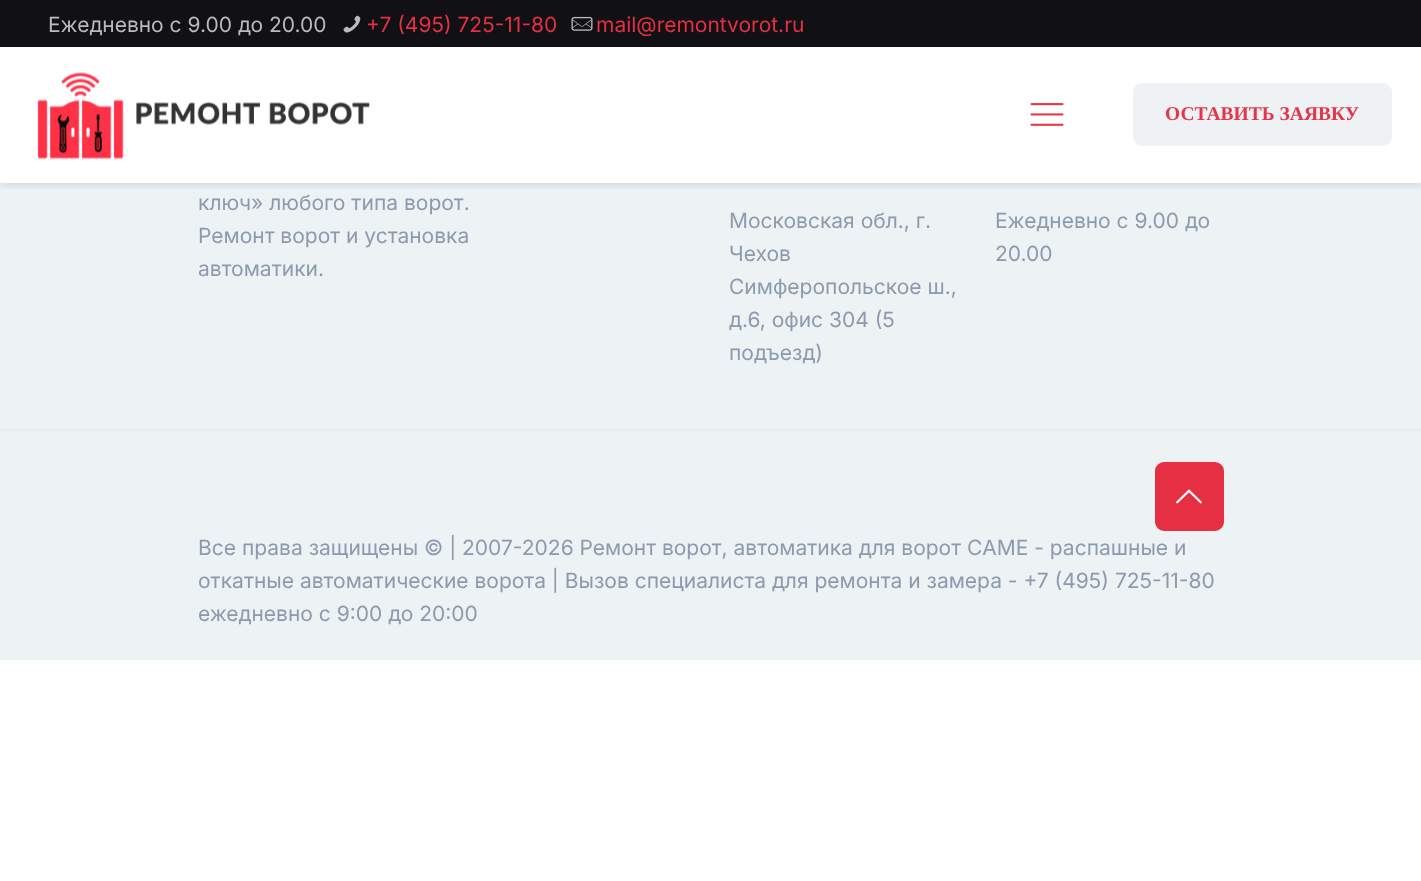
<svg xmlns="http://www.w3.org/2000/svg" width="1421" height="881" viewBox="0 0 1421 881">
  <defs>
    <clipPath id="clip1"><path d="M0 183h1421v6H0z"/></clipPath>
  </defs>
  <rect width="100%" height="100%" fill="#fff"/>
  <path d="M0 0h1421v47H0z" fill="#101015"/>
  <image x="343" y="15" width="18" height="18" href="img/1.png"/>
  <image x="571" y="16" width="22" height="15" href="img/2.png"/>
  <path d="M0 183h1421v477H0z" fill="#edf2f4"/>
  <g clip-path="url(#clip1)">
    <path d="M0 50h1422v136H0z" fill="#0000001a" filter="blur(4px)"/>
  </g>
  <image x="37" y="72" width="333" height="88" href="img/3.png"/>
  <image x="1030" y="103" width="34" height="23" href="img/4.png"/>
  <rect x="1133" y="83" width="259" height="63" rx="9" fill="#edf2f4f7"/>
  <path d="M0 429h1421v2H0z" fill="#eaeaea"/>
  <rect x="1156.5" y="463.5" width="66" height="66" rx="7.5" fill="#e62f43" stroke="#e62f43" stroke-width="3"/>
  <image x="1176" y="489" width="26" height="15" href="img/5.png"/>
  <text x="48" y="32" font-family="Inter" font-size="21" fill="#bbb">Ежедневно с 9.00 до 20.00</text>
  <g font-family="Inter" font-size="21" fill="#e62f43">
    <text x="366" y="32">+7 (495) 725-11-80</text>
    <text x="596" y="32">mail@remontvorot.ru</text>
  </g>
  <text x="1165" y="120" font-family="Liberation Serif" font-size="19.5" font-weight="bold" fill="#e63548">ОСТАВИТЬ ЗАЯВКУ</text>
  <g font-family="Inter" font-size="21" fill="#8d99ae">
    <text x="198" y="210">ключ» любого типа ворот.</text>
    <text x="198" y="243">Ремонт ворот и установка</text>
    <text x="198" y="276">автоматики.</text>
    <text x="729" y="228">Московская обл., г.</text>
    <text x="729" y="261">Чехов</text>
    <text x="729" y="294">Симферопольское ш.,</text>
    <text x="729" y="327">д.6, офис 304 (5</text>
    <text x="729" y="360">подъезд)</text>
    <text x="995" y="228">Ежедневно с 9.00 до</text>
    <text x="995" y="261">20.00</text>
    <text x="198" y="555">Все права защищены © | 2007-2026 Ремонт ворот, автоматика для ворот CAME - распашные и</text>
    <text x="198" y="588">откатные автоматические ворота | Вызов специалиста для ремонта и замера - +7 (495) 725-11-80</text>
    <text x="198" y="621">ежедневно с 9:00 до 20:00</text>
  </g>
</svg>
